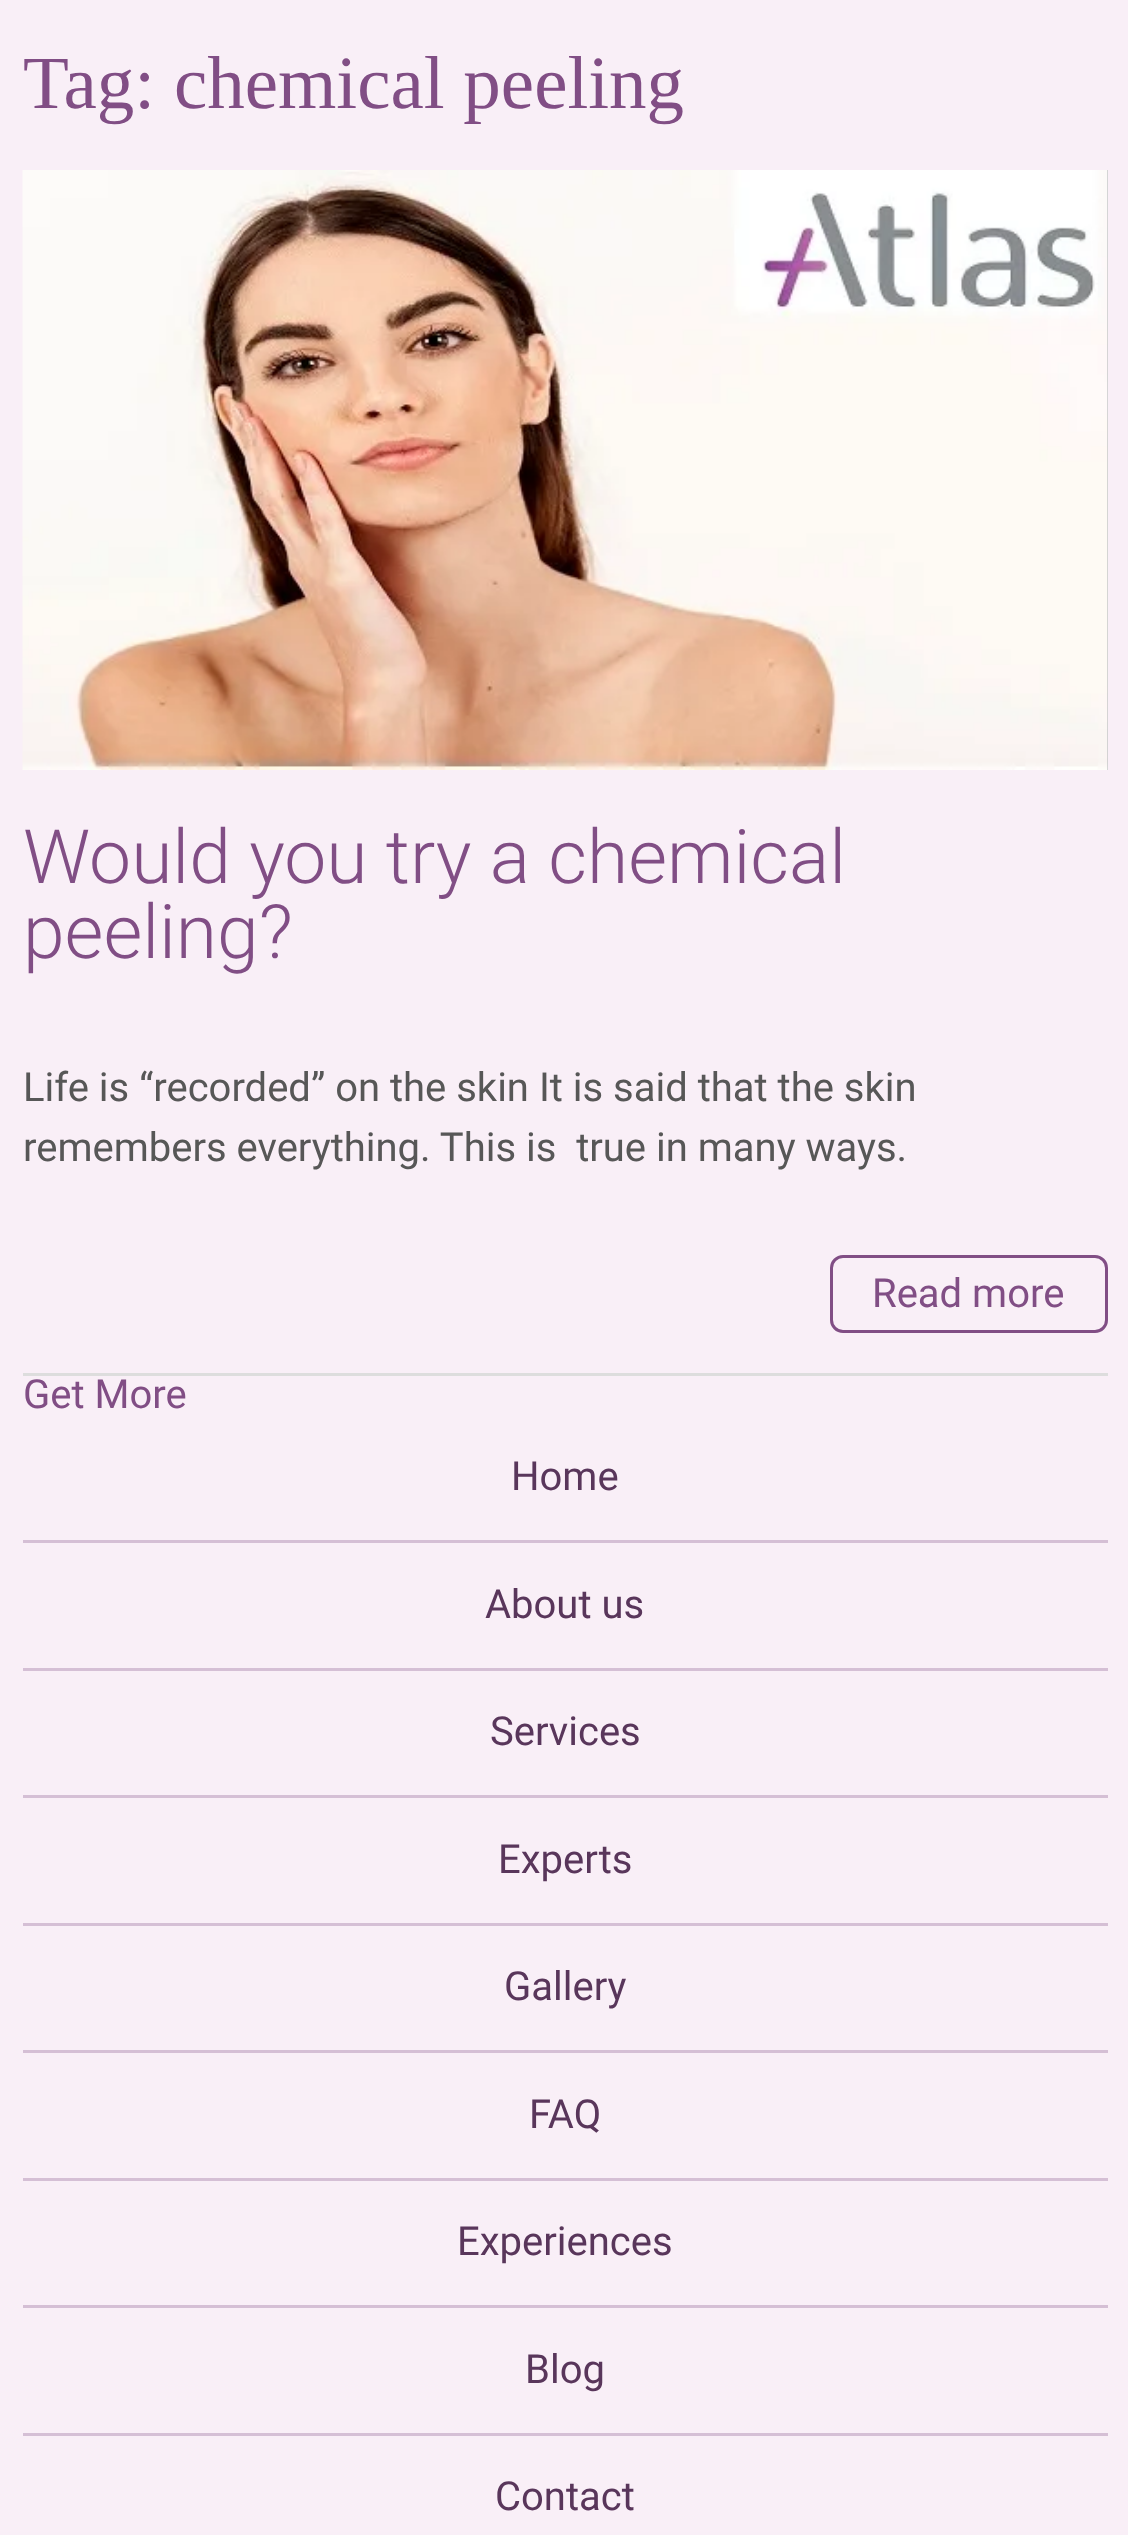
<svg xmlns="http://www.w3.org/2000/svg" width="1128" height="2535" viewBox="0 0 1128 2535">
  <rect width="100%" height="100%" fill="#f9eff7"/>
  <path d="M23 1373h1085v3H23z" fill="#ddd"/>
  <path d="M1107 170h1v600H1107z" fill="#adb0b3"/>
  <image x="22" y="170" width="1086" height="600" href="img/1.png"/>
  <rect x="831.5" y="1256.5" width="275" height="75" rx="11.5" fill="none" stroke="#814e85" stroke-width="3"/>
  <path d="M23 1540h1085v3H23z" fill="#d5bfd5"/>
  <path d="M23 1668h1085v3H23z" fill="#d5bfd5"/>
  <path d="M23 1795h1085v3H23z" fill="#d5bfd5"/>
  <path d="M23 1923h1085v3H23z" fill="#d5bfd5"/>
  <path d="M23 2050h1085v3H23z" fill="#d5bfd5"/>
  <path d="M23 2178h1085v3H23z" fill="#d5bfd5"/>
  <path d="M23 2305h1085v3H23z" fill="#d5bfd5"/>
  <path d="M23 2433h1085v3H23z" fill="#d5bfd5"/>
  <text x="23" y="108" font-family="Liberation Serif" font-size="75" fill="#814e85">Tag: chemical peeling</text>
  <g font-family="Roboto" font-size="75" font-weight="300" fill="#814e85">
    <text x="23" y="883">Would you try a chemical</text>
    <text x="23" y="958">peeling?</text>
  </g>
  <g font-family="Roboto" font-size="40" fill="#575757">
    <text x="23" y="1101">Life is “recorded” on the skin It is said that the skin</text>
    <text x="23" y="1161" xml:space="preserve">remembers everything. This is  true in many ways.</text>
  </g>
  <g font-family="Roboto" font-size="40" fill="#814e85">
    <text x="872" y="1307">Read more</text>
    <text x="23" y="1408">Get More</text>
  </g>
  <g font-family="Roboto" font-size="40" fill="#59365b">
    <text x="511" y="1490">Home</text>
    <text x="485" y="1618">About us</text>
    <text x="490" y="1745">Services</text>
    <text x="498" y="1873">Experts</text>
    <text x="504" y="2000">Gallery</text>
    <text x="529" y="2128">FAQ</text>
    <text x="457" y="2255">Experiences</text>
    <text x="525" y="2383">Blog</text>
    <text x="495" y="2510">Contact</text>
  </g>
</svg>
